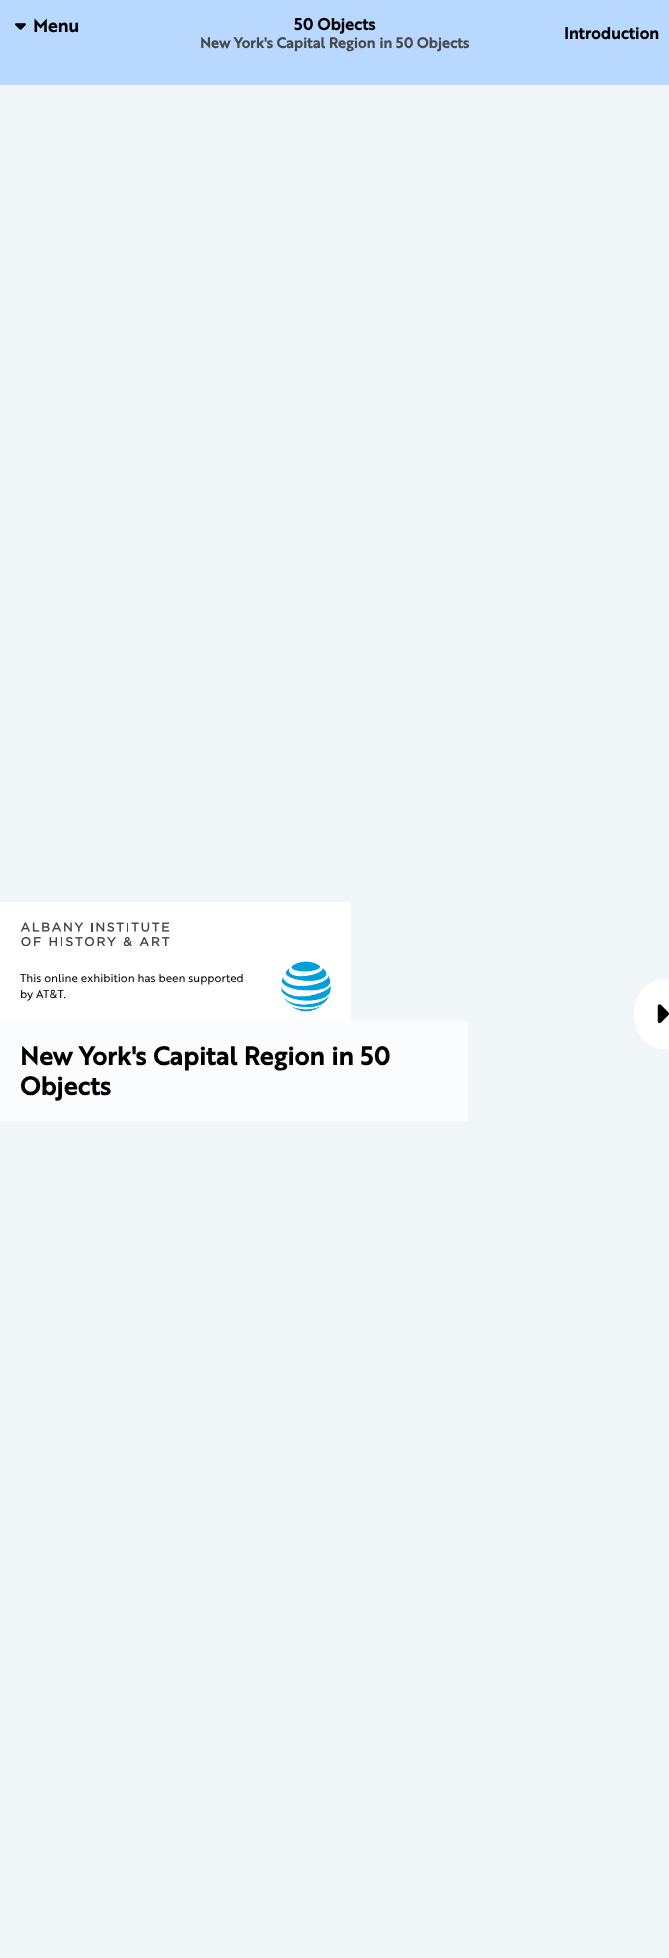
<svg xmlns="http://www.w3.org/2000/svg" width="669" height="1958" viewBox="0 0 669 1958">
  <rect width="100%" height="100%" fill="#f1f6f8"/>
  <path d="M0 0h669v85H0z" fill="#b8d8ff"/>
  <image x="15" y="23" width="11" height="7" href="img/1.png"/>
  <path d="M0 902h351v119H0z" fill="#fff"/>
  <image x="20" y="922" width="150" height="24" href="img/2.png"/>
  <image x="281" y="961" width="50" height="51" href="img/3.png"/>
  <path d="M0 1021h468v100H0z" fill="#fbfcfd"/>
  <ellipse cx="664" cy="1014" rx="30" ry="35" fill="#fff"/>
  <image x="657" y="1004" width="12" height="20" href="img/4.png"/>
  <text x="33" y="32" font-family="'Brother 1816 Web'" font-size="17.5" font-weight="bold" fill="#000">Menu</text>
  <text x="294" y="30" font-family="'Brother 1816 Web'" font-size="16" font-weight="bold" fill="#000">50 Objects</text>
  <text x="200" y="48" font-family="'Brother 1816 Web'" font-size="14.4" font-weight="bold" fill="#484848">New York's Capital Region in 50 Objects</text>
  <text x="564" y="39" font-family="'Brother 1816 Web'" font-size="16" font-weight="bold" fill="#000">Introduction</text>
  <g font-family="'Brother 1816 Web'" font-size="11.25" fill="#000">
    <text x="20" y="982">This online exhibition has been supported</text>
    <text x="20" y="998">by AT&amp;T.</text>
  </g>
  <g font-family="'Brother 1816 Web'" font-size="25" font-weight="bold" fill="#000">
    <text x="20" y="1065">New York's Capital Region in 50</text>
    <text x="20" y="1095">Objects</text>
  </g>
</svg>
